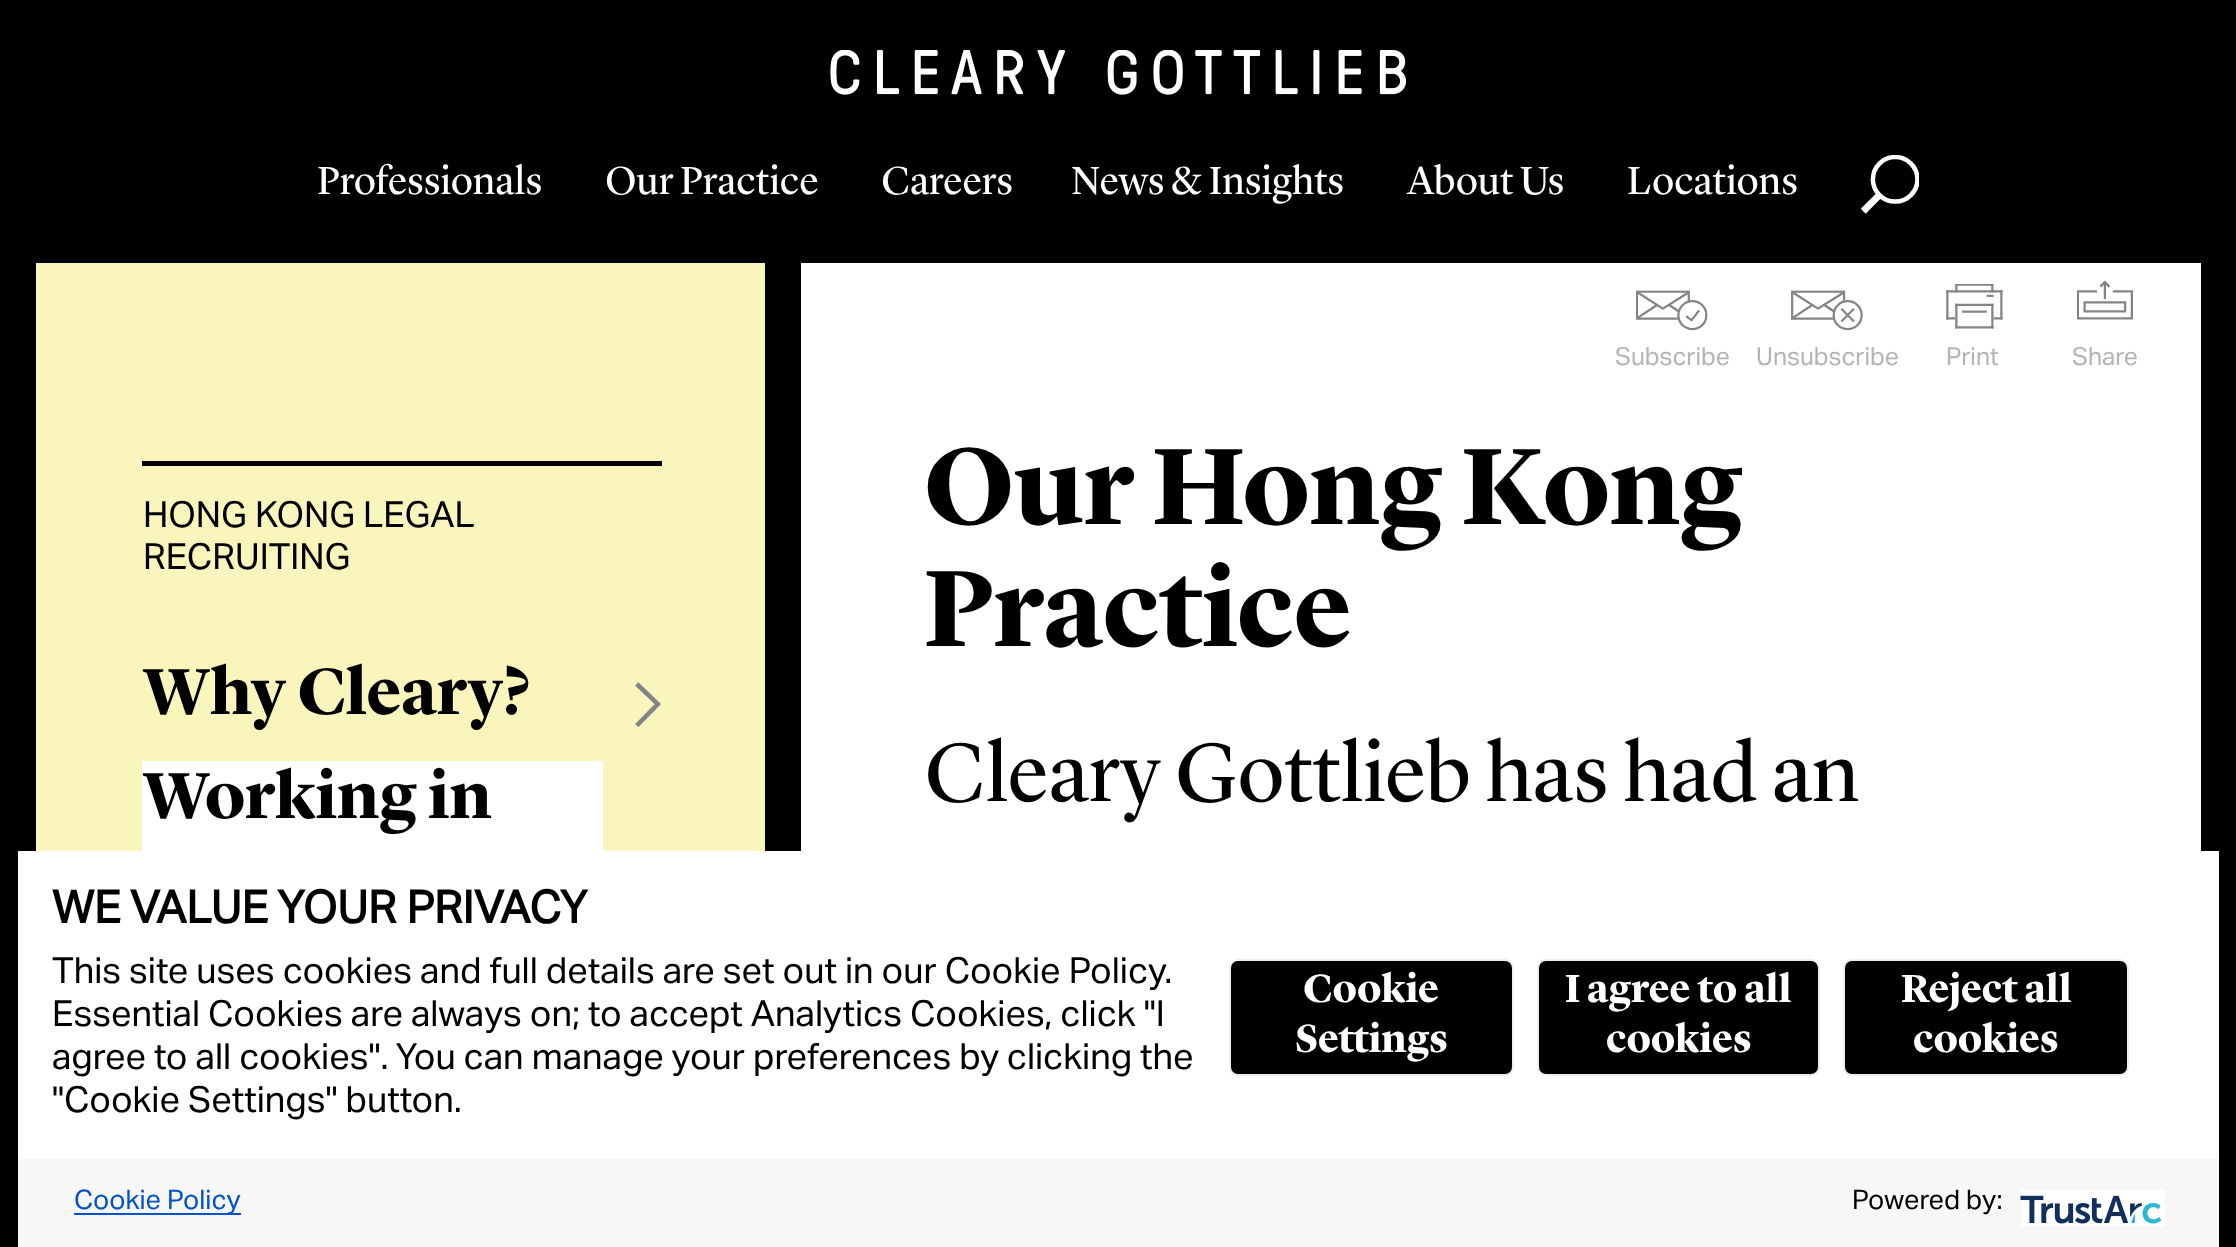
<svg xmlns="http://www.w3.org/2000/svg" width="2236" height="1247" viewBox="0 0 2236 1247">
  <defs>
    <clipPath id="clip1"><path d="M1616 277h549v97H1616z"/></clipPath>
  </defs>
  <rect width="100%" height="100%" fill="#000"/>
  <image x="830" y="50" width="576" height="45" href="img/1.png"/>
  <image x="1861" y="155" width="58" height="59" href="img/2.png"/>
  <path d="M36 263h729v588H36z" fill="#f9f5bd"/>
  <path d="M801 263h1400v588H801z" fill="#fff"/>
  <path d="M142 461h520v5H142z" fill="#000"/>
  <image x="635" y="682" width="26" height="45" href="img/3.png"/>
  <path d="M142 761h461v90H142z" fill="#fff"/>
  <image x="1636" y="290" width="72" height="41" href="img/4.png"/>
  <image x="1791" y="290" width="72" height="41" href="img/5.png"/>
  <image x="1946" y="284" width="57" height="45" href="img/6.png"/>
  <image x="2077" y="281" width="56" height="39" href="img/7.png"/>
  <path d="M18 851h2201v308H18z" fill="#fff"/>
  <rect x="1230" y="960" width="283" height="115" rx="8" fill="#000" stroke="#eee" stroke-width="2"/>
  <rect x="1538" y="960" width="281" height="115" rx="8" fill="#000" stroke="#eee" stroke-width="2"/>
  <rect x="1844" y="960" width="284" height="115" rx="8" fill="#000" stroke="#eee" stroke-width="2"/>
  <path d="M18 1159h2201v88H18z" fill="#f7f7f7"/>
  <path d="M74 1213h167v2H74z" fill="#0052cc"/>
  <image x="2020" y="1190" width="145" height="36" href="img/8.png"/>
  <g font-family="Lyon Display" font-size="40.5" fill="#fff">
    <text x="317" y="194">Professionals</text>
    <text x="605" y="194">Our Practice</text>
    <text x="881" y="194">Careers</text>
    <text x="1071" y="194">News &amp; Insights</text>
    <text x="1407" y="194">About Us</text>
    <text x="1627" y="194">Locations</text>
  </g>
  <g font-family="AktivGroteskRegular" font-size="36" fill="#000">
    <text x="143" y="527">HONG KONG LEGAL</text>
    <text x="143" y="569">RECRUITING</text>
  </g>
  <g font-family="Lyon Display" font-size="67.5" font-weight="bold" fill="#000">
    <text x="143" y="714">Why Cleary?</text>
    <text x="143" y="818">Working in</text>
  </g>
  <g clip-path="url(#clip1)">
    <text x="1615" y="365" font-family="AktivGroteskRegular" font-size="24.75" fill="#b4b4b4">Subscribe</text>
  </g>
  <g font-family="AktivGroteskRegular" font-size="24.75" fill="#b4b4b4">
    <text x="1756" y="365">Unsubscribe</text>
    <text x="1946" y="365">Print</text>
    <text x="2072" y="365">Share</text>
  </g>
  <g font-family="Lyon Display" font-size="112.5" font-weight="bold" fill="#000">
    <text x="924" y="524">Our Hong Kong</text>
    <text x="924" y="646">Practice</text>
  </g>
  <text x="924" y="801" font-family="Lyon Display" font-size="85.5" fill="#000">Cleary Gottlieb has had an</text>
  <text x="52" y="923" font-family="AktivGroteskRegular" font-size="45" font-weight="bold" fill="#000">WE VALUE YOUR PRIVACY</text>
  <g font-family="AktivGroteskRegular" font-size="36" fill="#000">
    <text x="52" y="983">This site uses cookies and full details are set out in our Cookie Policy.</text>
    <text x="52" y="1026">Essential Cookies are always on; to accept Analytics Cookies, click "I</text>
    <text x="52" y="1069">agree to all cookies". You can manage your preferences by clicking the</text>
    <text x="52" y="1112">"Cookie Settings" button.</text>
  </g>
  <g font-family="Lyon Display" font-size="40.5" font-weight="bold" fill="#fff">
    <text x="1303" y="1002">Cookie</text>
    <text x="1295" y="1052">Settings</text>
    <text x="1565" y="1002">I agree to all</text>
    <text x="1606" y="1052">cookies</text>
    <text x="1901" y="1002">Reject all</text>
    <text x="1913" y="1052">cookies</text>
  </g>
  <text x="74" y="1209" font-family="AktivGroteskRegular" font-size="27" fill="#0052cc">Cookie Policy</text>
  <text x="1852" y="1209" font-family="AktivGroteskRegular" font-size="27" fill="#000">Powered by:</text>
</svg>
